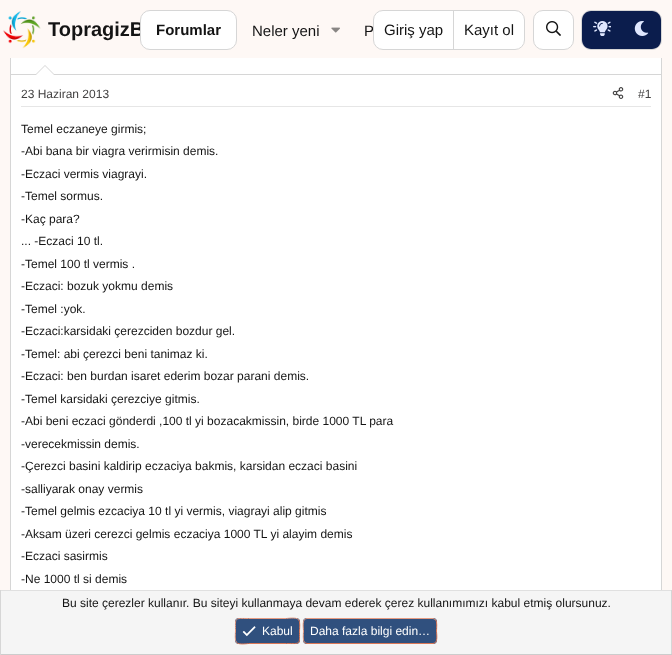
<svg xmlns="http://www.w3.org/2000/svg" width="672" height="655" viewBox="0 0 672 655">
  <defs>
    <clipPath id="clip1"><path d="M130 10h243v40H130z"/></clipPath>
  </defs>
  <rect width="100%" height="100%" fill="#fef8f5"/>
  <path d="M20-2H652C657-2 661 0 661 2V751C661 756 657 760 652 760H20C15 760 11 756 11 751V2C11 0 15-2 20-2Z" fill="#fff"/>
  <path d="M662 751V2L661-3V1V2V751C661 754 660 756 658 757L659 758C661 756 662 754 662 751Z" fill="#d6d6d6"/>
  <path d="M10 2V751C10 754 11 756 13 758L14 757C12 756 11 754 11 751V2V1V-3Z" fill="#d6d6d6"/>
  <path d="M10 0h652v58H10z" fill="#fef8f5"/>
  <image x="3" y="11" width="38" height="38" href="img/1.png"/>
  <image x="331" y="27" width="9" height="6" href="img/2.png"/>
  <rect x="373.5" y="10.5" width="151" height="39" rx="9.5" fill="#fff" stroke="#d6d6d6"/>
  <path d="M453 11h1v38H453z" fill="#d6d6d6"/>
  <rect x="533.5" y="10.5" width="40" height="39" rx="9.5" fill="#fff" stroke="#d6d6d6"/>
  <image x="546" y="21" width="15" height="15" href="img/3.png"/>
  <rect x="581.5" y="10.5" width="80" height="39" rx="9.5" fill="none" stroke="#d6d6d6"/>
  <path d="M591 11H622V49H591C586 49 582 45 582 40V20C582 15 586 11 591 11Z" fill="#0b1d4d"/>
  <image x="593" y="21" width="18" height="15" href="img/4.png"/>
  <path d="M622 11H652C657 11 661 15 661 20V40C661 45 657 49 652 49H622Z" fill="#0b1d4d"/>
  <image x="634" y="21" width="15" height="15" href="img/5.png"/>
  <path d="M11 74h650v1H11z" fill="#d6d6d6"/>
  <path d="M55 75H35L45 65Z" fill="#d6d6d6"/>
  <path d="M54 75H36L45 66Z" fill="#fff"/>
  <path d="M21 106h630v1H21z" fill="#e6e6e6"/>
  <image x="612" y="87" width="12" height="12" href="img/6.png"/>
  <path d="M1 591h670v63H1z" fill="#f5f5f5"/>
  <path d="M0 590h672v1H0z" fill="#e0e0e0"/>
  <path d="M671 590h1v65H671z" fill="#d6d6d6"/>
  <path d="M0 654h672v1H0z" fill="#ccc"/>
  <path d="M0 590h1v65H0z" fill="#d6d6d6"/>
  <rect x="235" y="618" width="65" height="26" rx="4" fill="#30507e"/>
  <path d="M298.5 619.5C300.5 621.5 299.5 628.5 299.5 631C299.5 645 301 643.5 286.5 643.5H248.5C248 643.5 239 645 236.5 642.5" fill="none" stroke="#db7857"/>
  <path d="M236.5 642.5C234.5 640.5 235.5 633.5 235.5 631C235.5 617 234 618.5 248.5 618.5H286.5C287 618.5 296 617 298.5 619.5" fill="none" stroke="#e49a81"/>
  <image x="242" y="626" width="14" height="11" href="img/7.png"/>
  <rect x="303" y="618" width="134" height="26" rx="4" fill="#30507e"/>
  <path d="M435.5 619.5C437.5 621.5 436.5 628.5 436.5 631C436.5 633.5 438.5 643.5 433 643.5H307L304.5 642.5" fill="none" stroke="#db7857"/>
  <path d="M304.5 642.5C302.5 640.5 303.5 633.5 303.5 631C303.5 628.5 301.5 618.5 307 618.5H433L435.5 619.5" fill="none" stroke="#e49a81"/>
  <text x="48" y="36" font-family="Liberation Sans" font-size="20" font-weight="bold" fill="#141414">TopragizB</text>
  <rect x="140.5" y="10.5" width="96" height="39" rx="9.5" fill="#fff" stroke="#d6d6d6"/>
  <text x="156" y="35" font-family="Liberation Sans" font-size="15" font-weight="bold" fill="#141414">Forumlar</text>
  <text x="252" y="36" font-family="Liberation Sans" font-size="15" fill="#141414">Neler yeni</text>
  <g clip-path="url(#clip1)">
    <text x="364" y="36" font-family="Liberation Sans" font-size="15" fill="#141414">P</text>
  </g>
  <g font-family="Liberation Sans" font-size="15" fill="#141414">
    <text x="384" y="35">Giriş yap</text>
    <text x="464" y="35">Kayıt ol</text>
  </g>
  <g font-family="Liberation Sans" font-size="12" fill="#434242">
    <text x="21" y="98">23 Haziran 2013</text>
    <text x="638" y="98">#1</text>
  </g>
  <g font-family="Liberation Sans" font-size="12" fill="#141414">
    <text x="21" y="133">Temel eczaneye girmis;</text>
    <text x="21" y="155">-Abi bana bir viagra verirmisin demis.</text>
    <text x="21" y="178">-Eczaci vermis viagrayi.</text>
    <text x="21" y="200">-Temel sormus.</text>
    <text x="21" y="223">-Kaç para?</text>
    <text x="21" y="245">... -Eczaci 10 tl.</text>
    <text x="21" y="268">-Temel 100 tl vermis .</text>
    <text x="21" y="290">-Eczaci: bozuk yokmu demis</text>
    <text x="21" y="313">-Temel :yok.</text>
    <text x="21" y="335">-Eczaci:karsidaki çerezciden bozdur gel.</text>
    <text x="21" y="358">-Temel: abi çerezci beni tanimaz ki.</text>
    <text x="21" y="380">-Eczaci: ben burdan isaret ederim bozar parani demis.</text>
    <text x="21" y="403">-Temel karsidaki çerezciye gitmis.</text>
    <text x="21" y="425">-Abi beni eczaci gönderdi ,100 tl yi bozacakmissin, birde 1000 TL para</text>
    <text x="21" y="448">-verecekmissin demis.</text>
    <text x="21" y="470">-Çerezci basini kaldirip eczaciya bakmis, karsidan eczaci basini</text>
    <text x="21" y="493">-salliyarak onay vermis</text>
    <text x="21" y="515">-Temel gelmis ezcaciya 10 tl yi vermis, viagrayi alip gitmis</text>
    <text x="21" y="538">-Aksam üzeri cerezci gelmis eczaciya 1000 TL yi alayim demis</text>
    <text x="21" y="560">-Eczaci sasirmis</text>
    <text x="21" y="583">-Ne 1000 tl si demis</text>
    <text x="62" y="607">Bu site çerezler kullanır. Bu siteyi kullanmaya devam ederek çerez kullanımımızı kabul etmiş olursunuz.</text>
  </g>
  <g font-family="Liberation Sans" font-size="12" fill="#fff">
    <text x="262" y="635">Kabul</text>
    <text x="310" y="635">Daha fazla bilgi edin…</text>
  </g>
</svg>
